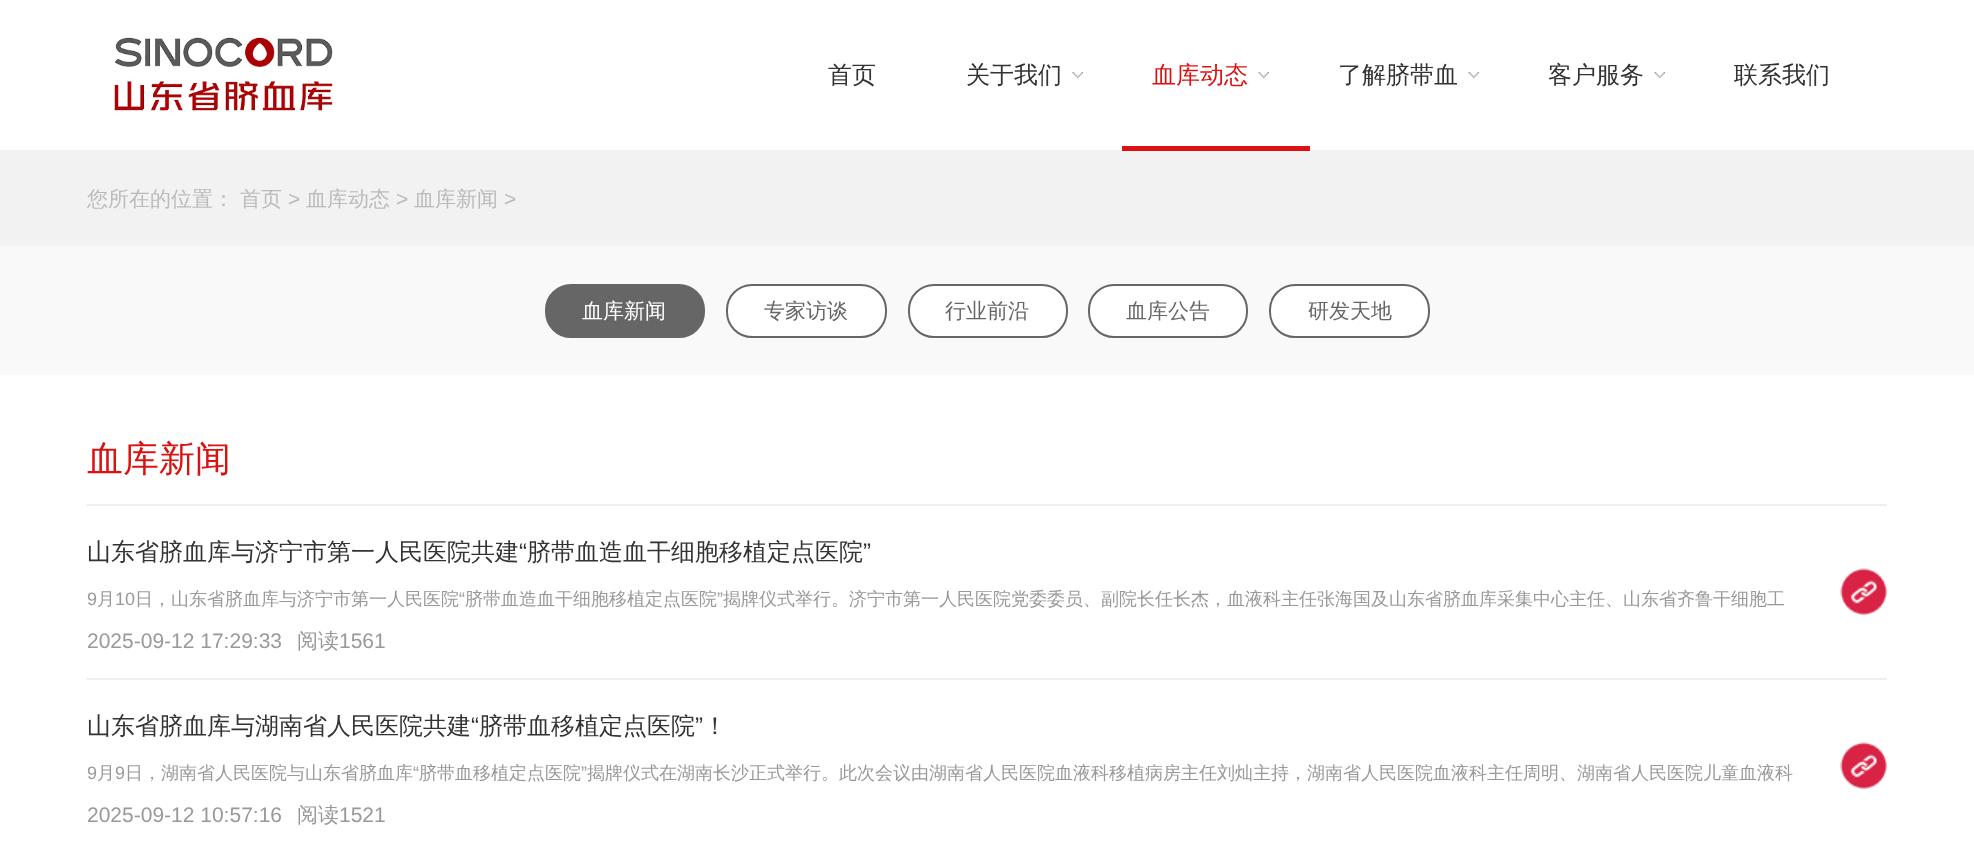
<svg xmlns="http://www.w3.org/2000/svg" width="1974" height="850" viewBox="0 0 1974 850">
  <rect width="100%" height="100%" fill="#fff"/>
  <image x="114" y="37" width="219" height="74" href="img/1.png"/>
  <image x="1072" y="72" width="11" height="6" href="img/2.png"/>
  <path d="M0 150h1974v96H0z" fill="#f2f2f2"/>
  <path d="M1122 146h188v5H1122z" fill="#db1213"/>
  <image x="1258" y="72" width="11" height="6" href="img/2.png"/>
  <image x="1468" y="72" width="11" height="6" href="img/3.png"/>
  <image x="1654" y="72" width="11" height="6" href="img/2.png"/>
  <path d="M0 246h1974v129H0z" fill="#f9f9f9"/>
  <rect x="546" y="285" width="158" height="52" rx="25" fill="#666" stroke="#666" stroke-width="2"/>
  <rect x="727" y="285" width="159" height="52" rx="25" fill="#fff" stroke="#666" stroke-width="2"/>
  <rect x="909" y="285" width="158" height="52" rx="25" fill="#fff" stroke="#666" stroke-width="2"/>
  <rect x="1089" y="285" width="158" height="52" rx="25" fill="#fff" stroke="#666" stroke-width="2"/>
  <rect x="1270" y="285" width="159" height="52" rx="25" fill="#fff" stroke="#666" stroke-width="2"/>
  <path d="M87 504h1800v2H87z" fill="#eee"/>
  <path d="M87 678h1800v2H87z" fill="#eee"/>
  <image x="1840" y="568" width="47" height="47" href="img/4.png"/>
  <image x="1840" y="742" width="47" height="47" href="img/4.png"/>
  <g font-family="WenQuanYi Zen Hei" font-size="24" font-weight="500" fill="#333">
    <text x="828" y="83">首页</text>
    <text x="966" y="83">关于我们</text>
  </g>
  <text x="1152" y="83" font-family="WenQuanYi Zen Hei" font-size="24" font-weight="500" fill="#db1213">血库动态</text>
  <g font-family="WenQuanYi Zen Hei" font-size="24" font-weight="500" fill="#333">
    <text x="1338" y="83">了解脐带血</text>
    <text x="1548" y="83">客户服务</text>
    <text x="1734" y="83">联系我们</text>
  </g>
  <g font-family="WenQuanYi Zen Hei" font-size="21" font-weight="500" fill="#bbb">
    <text x="87" y="206">您所在的位置：</text>
    <text x="240" y="206">首页</text>
  </g>
  <text x="288" y="206" font-family="Liberation Sans" font-size="21" fill="#bbb">&gt;</text>
  <text x="306" y="206" font-family="WenQuanYi Zen Hei" font-size="21" font-weight="500" fill="#bbb">血库动态</text>
  <text x="396" y="206" font-family="Liberation Sans" font-size="21" fill="#bbb">&gt;</text>
  <text x="414" y="206" font-family="WenQuanYi Zen Hei" font-size="21" font-weight="500" fill="#bbb">血库新闻</text>
  <text x="504" y="206" font-family="Liberation Sans" font-size="21" fill="#bbb">&gt;</text>
  <text x="582" y="318" font-family="WenQuanYi Zen Hei" font-size="21" font-weight="500" fill="#fff">血库新闻</text>
  <g font-family="WenQuanYi Zen Hei" font-size="21" font-weight="500" fill="#666">
    <text x="764" y="318">专家访谈</text>
    <text x="945" y="318">行业前沿</text>
    <text x="1126" y="318">血库公告</text>
    <text x="1308" y="318">研发天地</text>
  </g>
  <text x="87" y="471" font-family="WenQuanYi Zen Hei" font-size="36" font-weight="500" fill="#db1213">血库新闻</text>
  <text x="87" y="560" font-family="WenQuanYi Zen Hei" font-size="24" font-weight="500" fill="#333">山东省脐血库与济宁市第一人民医院共建</text>
  <text x="519" y="560" font-family="Liberation Sans" font-size="24" fill="#333">“</text>
  <text x="527" y="560" font-family="WenQuanYi Zen Hei" font-size="24" font-weight="500" fill="#333">脐带血造血干细胞移植定点医院</text>
  <text x="863" y="560" font-family="Liberation Sans" font-size="24" fill="#333">”</text>
  <text x="87" y="605" font-family="Liberation Sans" font-size="18" fill="#999">9</text>
  <text x="97" y="605" font-family="WenQuanYi Zen Hei" font-size="18" font-weight="500" fill="#999">月</text>
  <text x="115" y="605" font-family="Liberation Sans" font-size="18" fill="#999">10</text>
  <text x="135" y="605" font-family="WenQuanYi Zen Hei" font-size="18" font-weight="500" fill="#999">日，山东省脐血库与济宁市第一人民医院</text>
  <text x="459" y="605" font-family="Liberation Sans" font-size="18" fill="#999">“</text>
  <text x="465" y="605" font-family="WenQuanYi Zen Hei" font-size="18" font-weight="500" fill="#999">脐带血造血干细胞移植定点医院</text>
  <text x="717" y="605" font-family="Liberation Sans" font-size="18" fill="#999">”</text>
  <text x="723" y="605" font-family="WenQuanYi Zen Hei" font-size="18" font-weight="500" fill="#999">揭牌仪式举行。济宁市第一人民医院党委委员、副院长任长杰，血液科主任张海国及山东省脐血库采集中心主任、山东省齐鲁干细胞工</text>
  <text x="87" y="648" font-family="Liberation Sans" font-size="21" fill="#999">2025-09-12 17:29:33</text>
  <text x="297" y="648" font-family="WenQuanYi Zen Hei" font-size="21" font-weight="500" fill="#999">阅读</text>
  <text x="339" y="648" font-family="Liberation Sans" font-size="21" fill="#999">1561</text>
  <text x="87" y="734" font-family="WenQuanYi Zen Hei" font-size="24" font-weight="500" fill="#333">山东省脐血库与湖南省人民医院共建</text>
  <text x="471" y="734" font-family="Liberation Sans" font-size="24" fill="#333">“</text>
  <text x="479" y="734" font-family="WenQuanYi Zen Hei" font-size="24" font-weight="500" fill="#333">脐带血移植定点医院</text>
  <text x="695" y="734" font-family="Liberation Sans" font-size="24" fill="#333">”</text>
  <text x="703" y="734" font-family="WenQuanYi Zen Hei" font-size="24" font-weight="500" fill="#333">！</text>
  <text x="87" y="779" font-family="Liberation Sans" font-size="18" fill="#999">9</text>
  <text x="97" y="779" font-family="WenQuanYi Zen Hei" font-size="18" font-weight="500" fill="#999">月</text>
  <text x="115" y="779" font-family="Liberation Sans" font-size="18" fill="#999">9</text>
  <text x="125" y="779" font-family="WenQuanYi Zen Hei" font-size="18" font-weight="500" fill="#999">日，湖南省人民医院与山东省脐血库</text>
  <text x="413" y="779" font-family="Liberation Sans" font-size="18" fill="#999">“</text>
  <text x="419" y="779" font-family="WenQuanYi Zen Hei" font-size="18" font-weight="500" fill="#999">脐带血移植定点医院</text>
  <text x="581" y="779" font-family="Liberation Sans" font-size="18" fill="#999">”</text>
  <text x="587" y="779" font-family="WenQuanYi Zen Hei" font-size="18" font-weight="500" fill="#999">揭牌仪式在湖南长沙正式举行。此次会议由湖南省人民医院血液科移植病房主任刘灿主持，湖南省人民医院血液科主任周明、湖南省人民医院儿童血液科</text>
  <text x="87" y="822" font-family="Liberation Sans" font-size="21" fill="#999">2025-09-12 10:57:16</text>
  <text x="297" y="822" font-family="WenQuanYi Zen Hei" font-size="21" font-weight="500" fill="#999">阅读</text>
  <text x="339" y="822" font-family="Liberation Sans" font-size="21" fill="#999">1521</text>
</svg>
